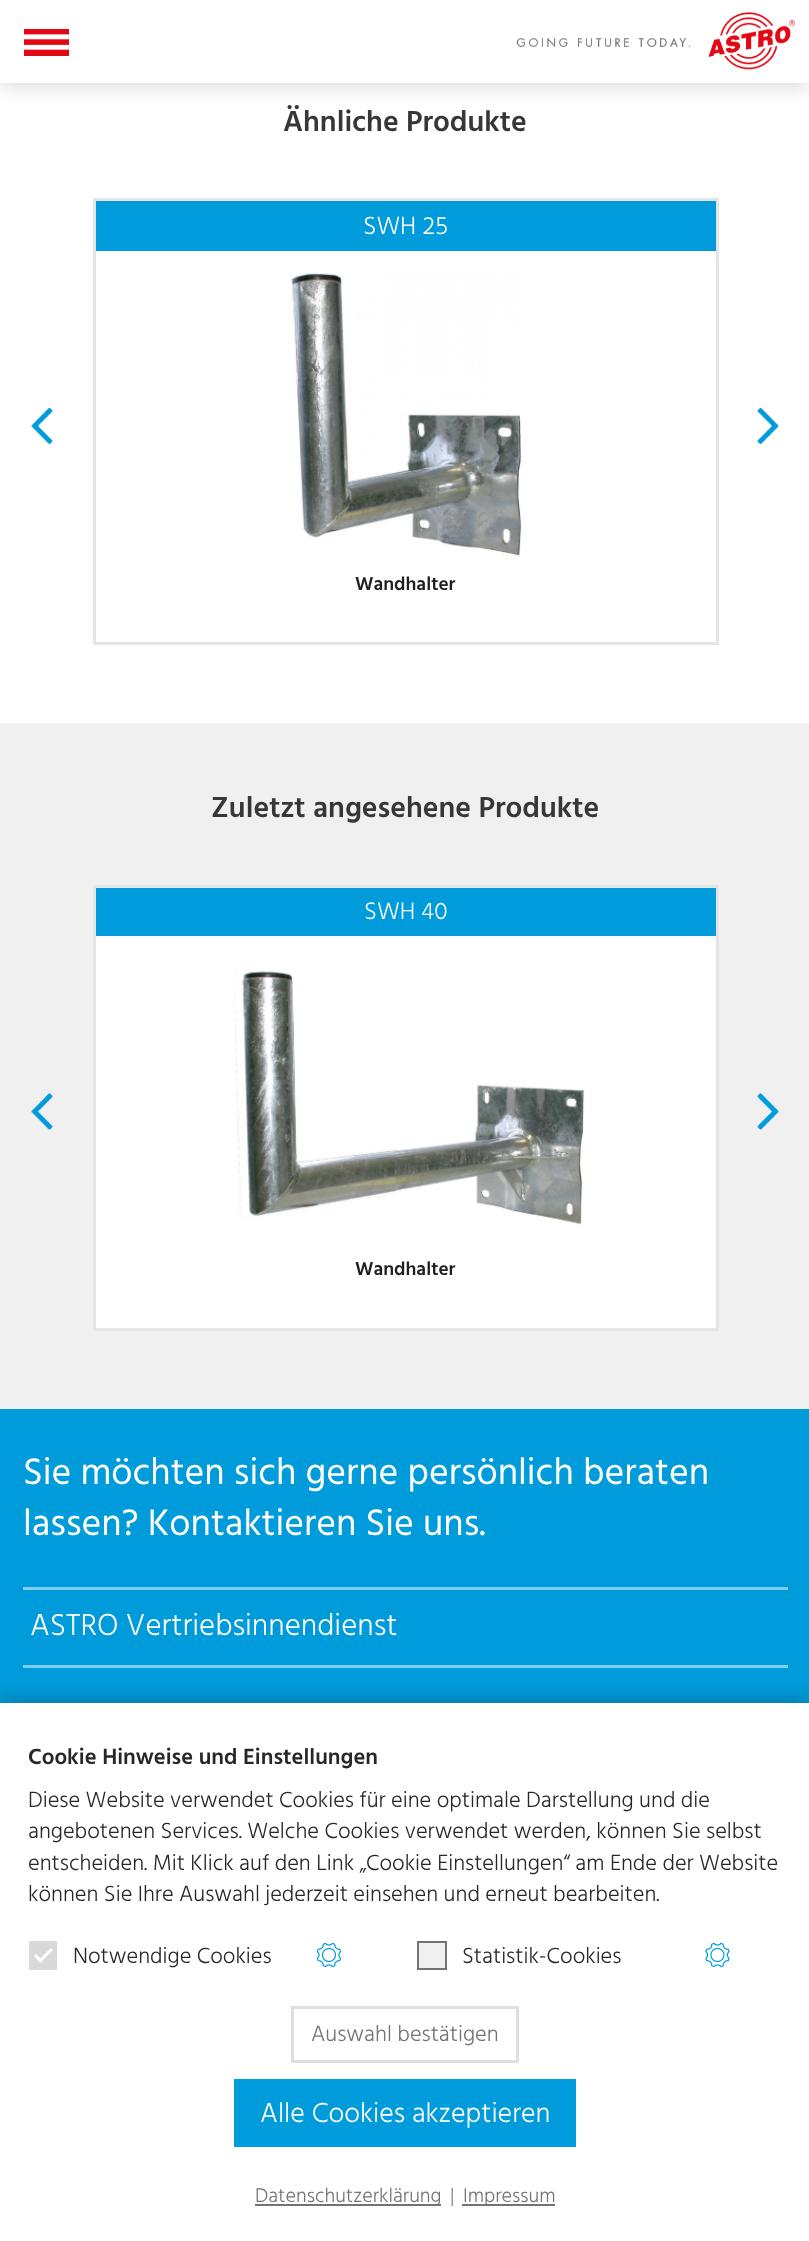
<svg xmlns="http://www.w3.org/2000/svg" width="809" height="2241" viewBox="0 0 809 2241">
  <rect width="100%" height="100%" fill="#fff"/>
  <path d="M0 0h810v83H0z" fill="#00000033" filter="blur(11px)"/>
  <path d="M0 0h809v83H0z" fill="#fff"/>
  <path d="M24 29h45v27H24z" fill="#e30613"/>
  <image x="24" y="34" width="45" height="17" href="img/1.png"/>
  <image x="516" y="12" width="279" height="58" href="img/2.png"/>
  <image x="31" y="408" width="22" height="36" href="img/3.png"/>
  <path d="M96 201h620v50H96z" fill="#009bda"/>
  <path d="M94.5 199.5h623v444H94.5z" fill="none" stroke="#e5e5e5" stroke-width="3"/>
  <image x="291" y="273" width="232" height="283" href="img/4.png"/>
  <image x="757" y="408" width="22" height="36" href="img/5.png"/>
  <path d="M0 723h809v686H0z" fill="#f0f0f0"/>
  <image x="31" y="1093" width="22" height="37" href="img/6.png"/>
  <path d="M96 888h620v48H96z" fill="#009bda"/>
  <path d="M94.5 886.5h623v443H94.5z" fill="none" stroke="#e5e5e5" stroke-width="3"/>
  <path d="M96 936h620v392H96z" fill="#fff"/>
  <image x="234" y="967" width="351" height="259" href="img/7.png"/>
  <image x="757" y="1093" width="22" height="37" href="img/8.png"/>
  <path d="M0 1409h809v294H0z" fill="#009bda"/>
  <path d="M23 1587h765v3H23z" fill="#80cded"/>
  <path d="M23 1665h765v3H23z" fill="#80cded"/>
  <path d="M0 1701h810v539H0z" fill="#00000042" filter="blur(9px)"/>
  <path d="M0 1703h809v538H0z" fill="#fff"/>
  <path d="M29 1941h28v29H29z" fill="#d9d9d9"/>
  <path d="M51 1948L53 1950L40.5 1962.5L38 1960.5Z" fill="#fff"/>
  <path d="M36 1954L42.5 1960.5L40.5 1962.5L34 1956.5Z" fill="#fff"/>
  <image x="316" y="1942" width="26" height="26" href="img/9.png"/>
  <path d="M418 1942h28v27H418z" fill="#f0f0f0" stroke="#737373" stroke-width="2"/>
  <image x="705" y="1942" width="25" height="26" href="img/10.png"/>
  <path d="M292.5 2007.5h225v54H292.5z" fill="none" stroke="#dfdfdf" stroke-width="3"/>
  <path d="M234 2079h342v68H234z" fill="#009bda"/>
  <path d="M255 2204h186v2H255z" fill="#737373"/>
  <path d="M462 2204h93v2H462z" fill="#737373"/>
  <text x="283" y="131" font-family="Hind" font-size="29.75" font-weight="600" fill="#373737">Ähnliche Produkte</text>
  <text x="363" y="234" font-family="Hind" font-size="25.5" font-weight="300" fill="#fff">SWH 25</text>
  <text x="355" y="590" font-family="Hind" font-size="19.25" font-weight="600" fill="#202020">Wandhalter</text>
  <text x="211" y="817" font-family="Hind" font-size="29.75" font-weight="600" fill="#373737">Zuletzt angesehene Produkte</text>
  <text x="364" y="919" font-family="Hind" font-size="24.5" font-weight="300" fill="#fff">SWH 40</text>
  <text x="355" y="1275" font-family="Hind" font-size="19.25" font-weight="600" fill="#202020">Wandhalter</text>
  <g font-family="Hind" font-size="37.75" fill="#fff">
    <text x="23" y="1484">Sie möchten sich gerne persönlich beraten</text>
    <text x="23" y="1535">lassen? Kontaktieren Sie uns.</text>
  </g>
  <text x="30" y="1635" font-family="Hind" font-size="31" font-weight="300" fill="#fff">ASTRO Vertriebsinnendienst</text>
  <text x="28" y="1764" font-family="Hind" font-size="22.5" font-weight="600" fill="#272727">Cookie Hinweise und Einstellungen</text>
  <g font-family="Hind" font-size="22.5" font-weight="300" fill="#272727">
    <text x="28" y="1807">Diese Website verwendet Cookies für eine optimale Darstellung und die</text>
    <text x="28" y="1838">angebotenen Services. Welche Cookies verwendet werden, können Sie selbst</text>
    <text x="28" y="1870">entscheiden. Mit Klick auf den Link „Cookie Einstellungen“ am Ende der Website</text>
    <text x="28" y="1901">können Sie Ihre Auswahl jederzeit einsehen und erneut bearbeiten.</text>
    <text x="73" y="1963">Notwendige Cookies</text>
    <text x="462" y="1963">Statistik-Cookies</text>
  </g>
  <text x="311" y="2041" font-family="Hind" font-size="22.5" font-weight="300" fill="#737373">Auswahl bestätigen</text>
  <text x="260" y="2122" font-family="Hind" font-size="28.1" font-weight="300" fill="#fff">Alle Cookies akzeptieren</text>
  <g font-family="Hind" font-size="20.25" font-weight="300" fill="#737373">
    <text x="255" y="2202">Datenschutzerklärung</text>
    <text x="450" y="2202">|</text>
    <text x="463" y="2202">Impressum</text>
  </g>
</svg>
